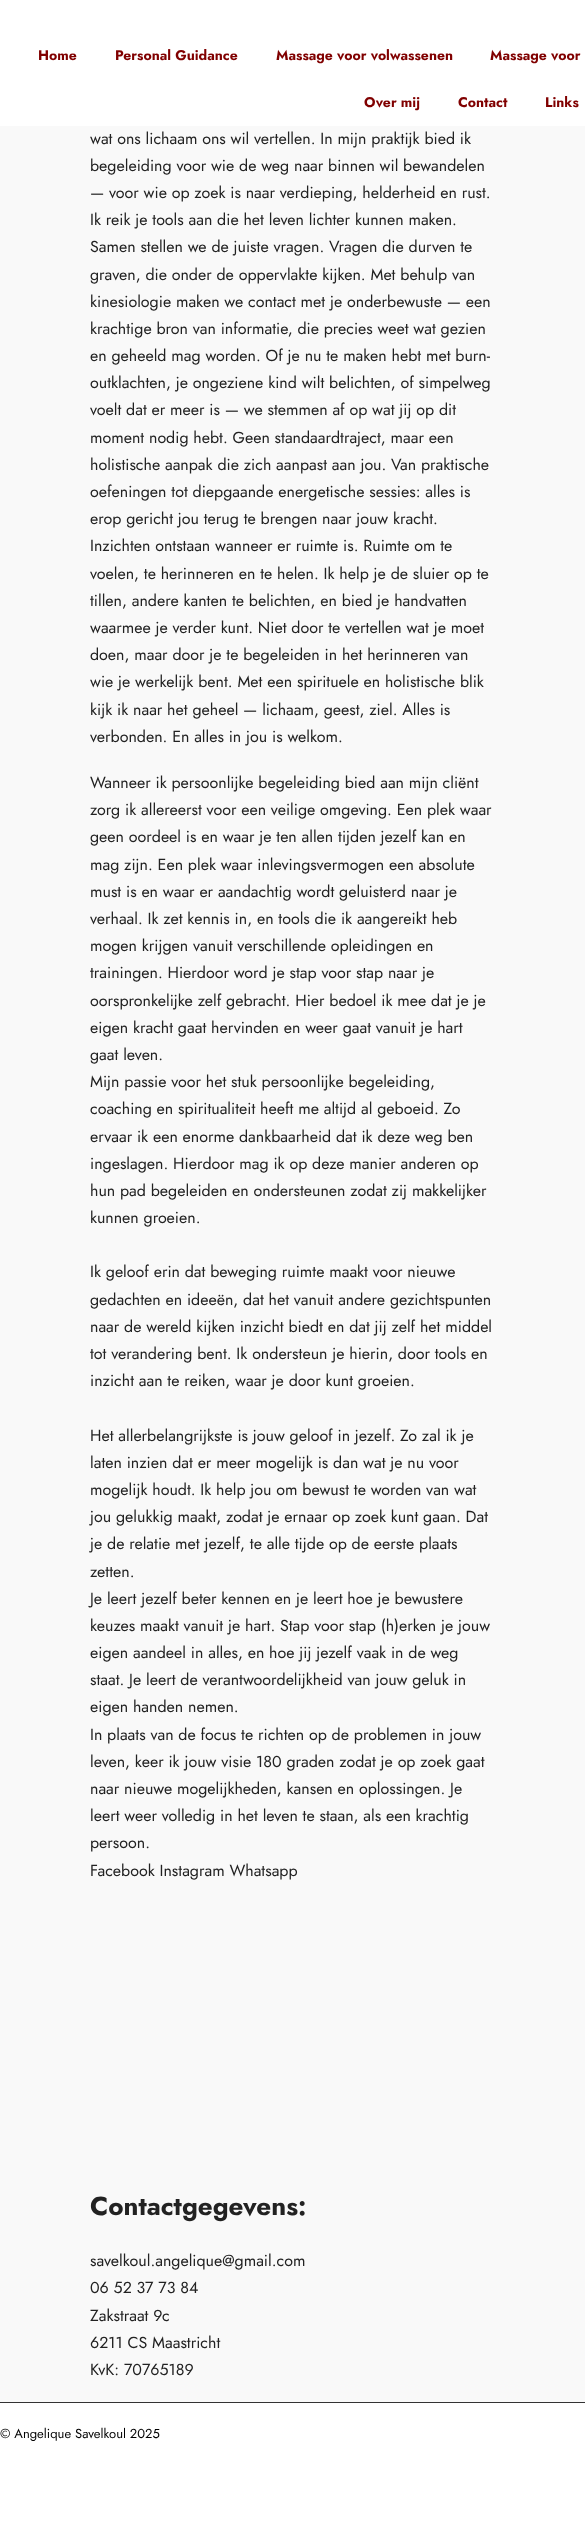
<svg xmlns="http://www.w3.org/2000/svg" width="585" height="2544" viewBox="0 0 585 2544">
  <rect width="100%" height="100%" fill="#fff"/>
  <path d="M0 126h585v2276H0z" fill="#f9f9f9"/>
  <path d="M0 2402h585v1H0z" fill="#333"/>
  <g font-family="Jost" font-size="14" font-weight="bold" fill="#800000">
    <text x="38" y="60">Home</text>
    <text x="115" y="60">Personal Guidance</text>
    <text x="276" y="60">Massage voor volwassenen</text>
    <text x="490" y="60">Massage voor</text>
    <text x="364" y="107">Over mij</text>
    <text x="458" y="107">Contact</text>
    <text x="545" y="107">Links</text>
  </g>
  <g font-family="Jost" font-size="16" fill="#222">
    <text x="90" y="144">wat ons lichaam ons wil vertellen. In mijn praktijk bied ik</text>
    <text x="90" y="171">begeleiding voor wie de weg naar binnen wil bewandelen</text>
    <text x="90" y="198">— voor wie op zoek is naar verdieping, helderheid en rust.</text>
    <text x="90" y="225">Ik reik je tools aan die het leven lichter kunnen maken.</text>
    <text x="90" y="252">Samen stellen we de juiste vragen. Vragen die durven te</text>
    <text x="90" y="280">graven, die onder de oppervlakte kijken. Met behulp van</text>
    <text x="90" y="307">kinesiologie maken we contact met je onderbewuste — een</text>
    <text x="90" y="334">krachtige bron van informatie, die precies weet wat gezien</text>
    <text x="90" y="361">en geheeld mag worden. Of je nu te maken hebt met burn-</text>
    <text x="90" y="388">outklachten, je ongeziene kind wilt belichten, of simpelweg</text>
    <text x="90" y="415">voelt dat er meer is — we stemmen af op wat jij op dit</text>
    <text x="90" y="443">moment nodig hebt. Geen standaardtraject, maar een</text>
    <text x="90" y="470">holistische aanpak die zich aanpast aan jou. Van praktische</text>
    <text x="90" y="497">oefeningen tot diepgaande energetische sessies: alles is</text>
    <text x="90" y="524">erop gericht jou terug te brengen naar jouw kracht.</text>
    <text x="90" y="551">Inzichten ontstaan wanneer er ruimte is. Ruimte om te</text>
    <text x="90" y="579">voelen, te herinneren en te helen. Ik help je de sluier op te</text>
    <text x="90" y="606">tillen, andere kanten te belichten, en bied je handvatten</text>
    <text x="90" y="633">waarmee je verder kunt. Niet door te vertellen wat je moet</text>
    <text x="90" y="660">doen, maar door je te begeleiden in het herinneren van</text>
    <text x="90" y="687">wie je werkelijk bent. Met een spirituele en holistische blik</text>
    <text x="90" y="715">kijk ik naar het geheel — lichaam, geest, ziel. Alles is</text>
    <text x="90" y="742">verbonden. En alles in jou is welkom.</text>
    <text x="90" y="788">Wanneer ik persoonlijke begeleiding bied aan mijn cliënt</text>
    <text x="90" y="815">zorg ik allereerst voor een veilige omgeving. Een plek waar</text>
    <text x="90" y="842">geen oordeel is en waar je ten allen tijden jezelf kan en</text>
    <text x="90" y="870">mag zijn. Een plek waar inlevingsvermogen een absolute</text>
    <text x="90" y="897">must is en waar er aandachtig wordt geluisterd naar je</text>
    <text x="90" y="924">verhaal. Ik zet kennis in, en tools die ik aangereikt heb</text>
    <text x="90" y="951">mogen krijgen vanuit verschillende opleidingen en</text>
    <text x="90" y="978">trainingen. Hierdoor word je stap voor stap naar je</text>
    <text x="90" y="1006">oorspronkelijke zelf gebracht. Hier bedoel ik mee dat je je</text>
    <text x="90" y="1033">eigen kracht gaat hervinden en weer gaat vanuit je hart</text>
    <text x="90" y="1060">gaat leven.</text>
    <text x="90" y="1087">Mijn passie voor het stuk persoonlijke begeleiding,</text>
    <text x="90" y="1114">coaching en spiritualiteit heeft me altijd al geboeid. Zo</text>
    <text x="90" y="1142">ervaar ik een enorme dankbaarheid dat ik deze weg ben</text>
    <text x="90" y="1169">ingeslagen. Hierdoor mag ik op deze manier anderen op</text>
    <text x="90" y="1196">hun pad begeleiden en ondersteunen zodat zij makkelijker</text>
    <text x="90" y="1223">kunnen groeien.</text>
    <text x="90" y="1277">Ik geloof erin dat beweging ruimte maakt voor nieuwe</text>
    <text x="90" y="1305">gedachten en ideeën, dat het vanuit andere gezichtspunten</text>
    <text x="90" y="1332">naar de wereld kijken inzicht biedt en dat jij zelf het middel</text>
    <text x="90" y="1359">tot verandering bent. Ik ondersteun je hierin, door tools en</text>
    <text x="90" y="1386">inzicht aan te reiken, waar je door kunt groeien.</text>
    <text x="90" y="1441">Het allerbelangrijkste is jouw geloof in jezelf. Zo zal ik je</text>
    <text x="90" y="1468">laten inzien dat er meer mogelijk is dan wat je nu voor</text>
    <text x="90" y="1495">mogelijk houdt. Ik help jou om bewust te worden van wat</text>
    <text x="90" y="1522">jou gelukkig maakt, zodat je ernaar op zoek kunt gaan. Dat</text>
    <text x="90" y="1549">je de relatie met jezelf, te alle tijde op de eerste plaats</text>
    <text x="90" y="1577">zetten.</text>
    <text x="90" y="1604">Je leert jezelf beter kennen en je leert hoe je bewustere</text>
    <text x="90" y="1631">keuzes maakt vanuit je hart. Stap voor stap (h)erken je jouw</text>
    <text x="90" y="1658">eigen aandeel in alles, en hoe jij jezelf vaak in de weg</text>
    <text x="90" y="1685">staat. Je leert de verantwoordelijkheid van jouw geluk in</text>
    <text x="90" y="1712">eigen handen nemen.</text>
    <text x="90" y="1740">In plaats van de focus te richten op de problemen in jouw</text>
    <text x="90" y="1767">leven, keer ik jouw visie 180 graden zodat je op zoek gaat</text>
    <text x="90" y="1794">naar nieuwe mogelijkheden, kansen en oplossingen. Je</text>
    <text x="90" y="1821">leert weer volledig in het leven te staan, als een krachtig</text>
    <text x="90" y="1848">persoon.</text>
    <text x="90" y="1876">Facebook Instagram Whatsapp</text>
  </g>
  <text x="90" y="2215" font-family="Jost" font-size="26" font-weight="bold" fill="#222">Contactgegevens:</text>
  <g font-family="Jost" font-size="16" fill="#222">
    <text x="90" y="2266">savelkoul.angelique@gmail.com</text>
    <text x="90" y="2293">06 52 37 73 84</text>
    <text x="90" y="2321">Zakstraat 9c</text>
    <text x="90" y="2348">6211 CS Maastricht</text>
    <text x="90" y="2375">KvK: 70765189</text>
  </g>
  <text x="0" y="2438" font-family="Jost" font-size="13" fill="#000">© Angelique Savelkoul 2025</text>
</svg>
